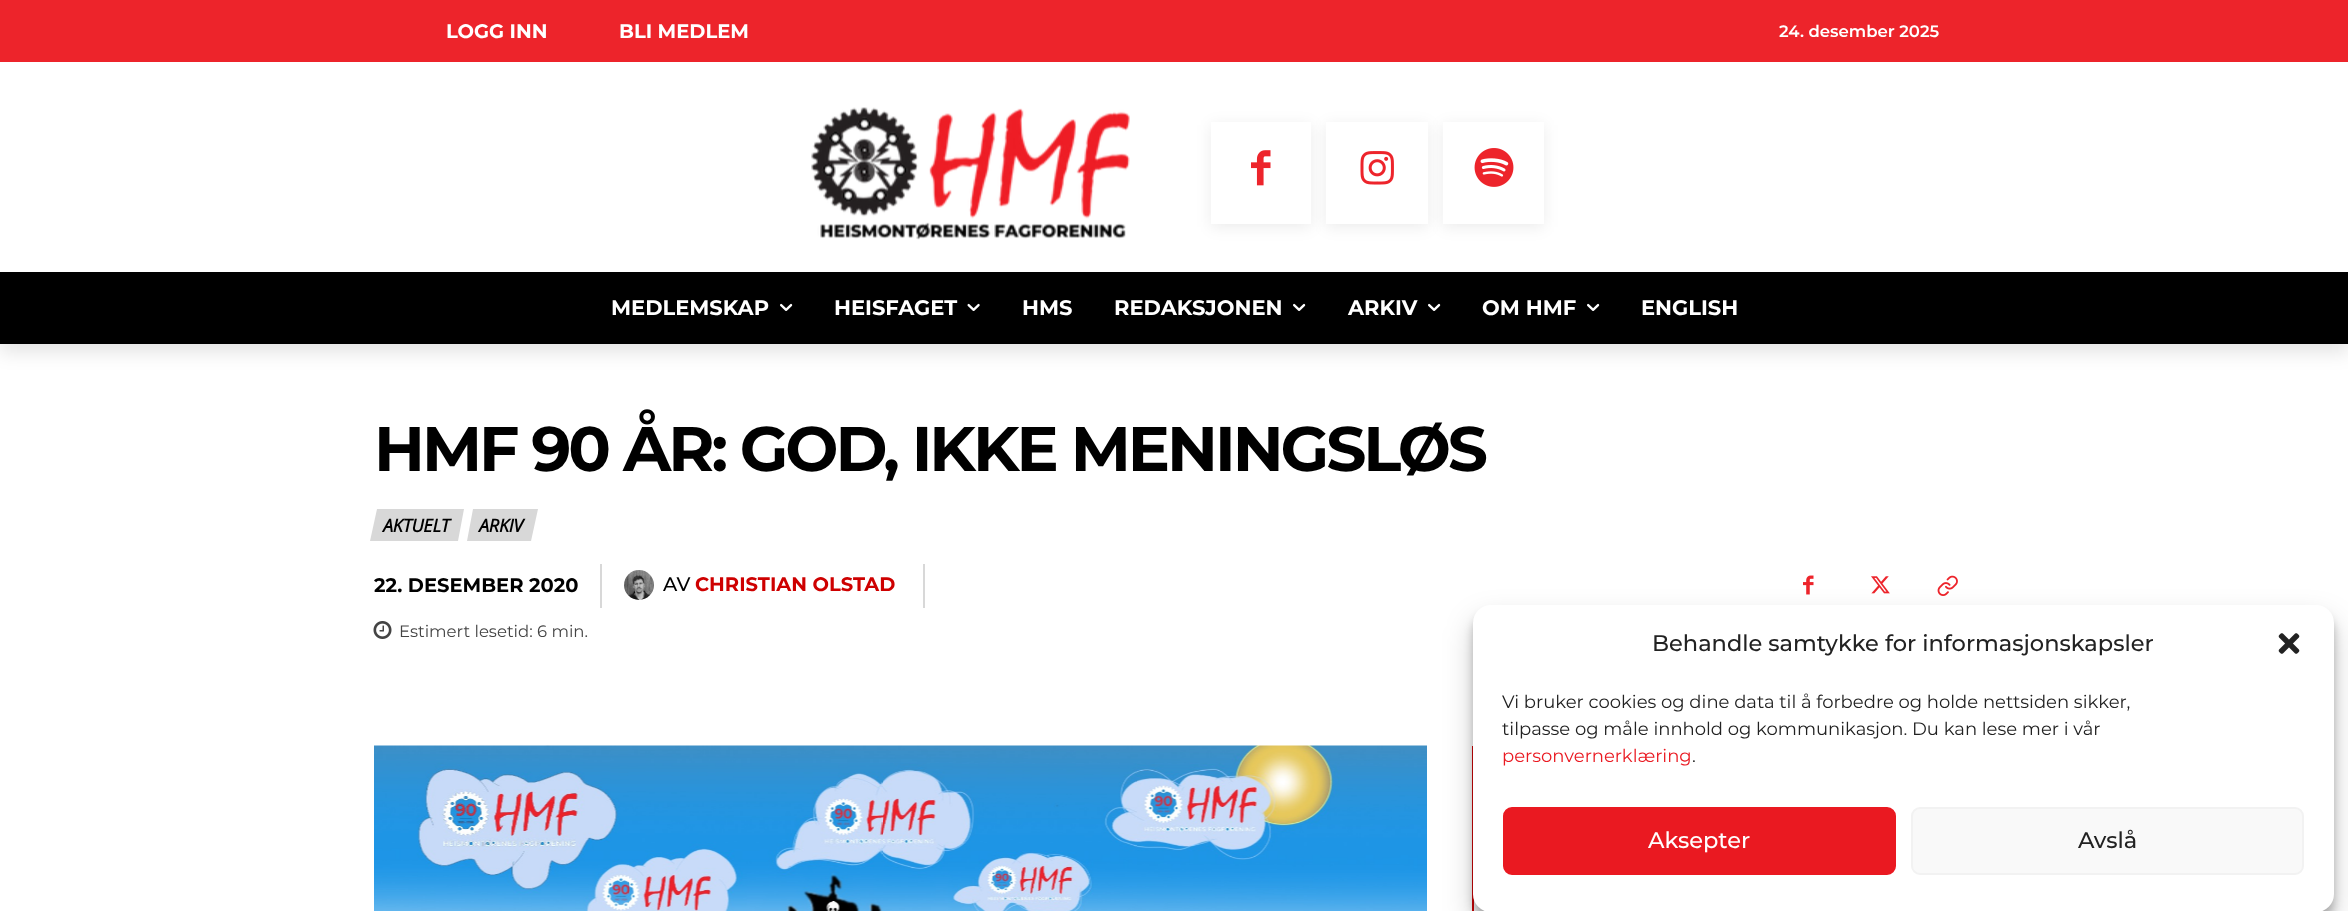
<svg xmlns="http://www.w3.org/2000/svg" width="2348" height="911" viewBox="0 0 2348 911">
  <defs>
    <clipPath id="clip1"><path d="M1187 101H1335V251H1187ZM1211 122H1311V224H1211Z" clip-rule="evenodd"/></clipPath>
    <clipPath id="clip2"><path d="M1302 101H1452V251H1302ZM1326 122H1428V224H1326Z" clip-rule="evenodd"/></clipPath>
    <clipPath id="clip3"><path d="M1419 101H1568V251H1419ZM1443 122H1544V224H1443Z" clip-rule="evenodd"/></clipPath>
    <clipPath id="clip4"><path d="M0 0H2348V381H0ZM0 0H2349V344H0Z" clip-rule="evenodd"/></clipPath>
  </defs>
  <rect width="100%" height="100%" fill="#fff"/>
  <path d="M0 0h2348v62H0z" fill="#ed242b"/>
  <image x="811" y="107" width="319" height="133" href="img/1.png"/>
  <g clip-path="url(#clip1)">
    <path d="M1211 125h100v102H1211z" fill="#00000014" filter="blur(7.5px)"/>
  </g>
  <image x="1251" y="150" width="20" height="36" href="img/2.png"/>
  <g clip-path="url(#clip2)">
    <path d="M1326 125h102v102H1326z" fill="#00000014" filter="blur(7.5px)"/>
  </g>
  <image x="1360" y="151" width="34" height="34" href="img/3.png"/>
  <g clip-path="url(#clip3)">
    <path d="M1443 125h101v102H1443z" fill="#00000014" filter="blur(7.5px)"/>
  </g>
  <image x="1474" y="148" width="40" height="39" href="img/4.png"/>
  <path d="M0 272h2348v72H0z" fill="#000"/>
  <g clip-path="url(#clip4)">
    <path d="M0 9h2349v344H0z" fill="#0000001a" filter="blur(9px)"/>
  </g>
  <image x="780" y="303" width="13" height="8" href="img/5.png"/>
  <image x="967" y="303" width="13" height="8" href="img/6.png"/>
  <image x="1293" y="303" width="13" height="8" href="img/5.png"/>
  <image x="1428" y="303" width="13" height="8" href="img/5.png"/>
  <image x="1587" y="303" width="13" height="8" href="img/5.png"/>
  <path d="M377 509H464L458 541H370Z" fill="#d8d8d8"/>
  <path d="M473 509H538L531 541H467Z" fill="#d8d8d8"/>
  <path d="M600 564h2v44H600z" fill="#d8d8d8"/>
  <path d="M923 564h2v44H923z" fill="#d8d8d8"/>
  <image x="624" y="570" width="30" height="30" href="img/7.png"/>
  <image x="1803" y="575" width="11" height="20" href="img/8.png"/>
  <image x="1871" y="576" width="19" height="18" href="img/9.png"/>
  <image x="1937" y="575" width="21" height="21" href="img/10.png"/>
  <image x="373" y="621" width="19" height="18" href="img/11.png"/>
  <image x="374" y="745" width="1053" height="166" href="img/12.png"/>
  <path d="M1473 747h502v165H1473z" fill="none" stroke="#cf0507" stroke-width="2"/>
  <rect x="1473" y="614" width="861" height="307" rx="18" fill="#0000003b" filter="blur(4.5px)"/>
  <rect x="1473" y="620" width="861" height="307" rx="18" fill="#00000030" filter="blur(15px)"/>
  <rect x="1473" y="605" width="861" height="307" rx="18" fill="#fff"/>
  <image x="2278" y="633" width="22" height="21" href="img/13.png"/>
  <rect x="1504" y="808" width="391" height="66" rx="8" fill="#ea1921" stroke="#ea1921" stroke-width="2"/>
  <rect x="1912" y="808" width="391" height="66" rx="8" fill="#f9f9f9" stroke="#f2f2f2" stroke-width="2"/>
  <g font-family="Montserrat" font-size="19.5" font-weight="bold" fill="#fff">
    <text x="446" y="38">LOGG INN</text>
    <text x="619" y="38">BLI MEDLEM</text>
  </g>
  <text x="1779" y="37" font-family="Montserrat" font-size="16.5" font-weight="600" fill="#fff">24. desember 2025</text>
  <g font-family="Montserrat" font-size="21" font-weight="bold" fill="#fff">
    <text x="611" y="315">MEDLEMSKAP</text>
    <text x="834" y="315">HEISFAGET</text>
    <text x="1022" y="315">HMS</text>
    <text x="1114" y="315">REDAKSJONEN</text>
    <text x="1348" y="315">ARKIV</text>
    <text x="1482" y="315">OM HMF</text>
    <text x="1641" y="315">ENGLISH</text>
  </g>
  <text x="374" y="471" font-family="Montserrat" font-size="63" font-weight="bold" letter-spacing="-3" fill="#000">HMF 90 ÅR: GOD, IKKE MENINGSLØS</text>
  <g font-family="Open Sans" font-size="18" font-weight="bold" font-style="italic" letter-spacing="-0.25" fill="#000">
    <text x="383" y="532">AKTUELT</text>
    <text x="479" y="532">ARKIV</text>
  </g>
  <text x="374" y="592" font-family="Montserrat" font-size="19.5" font-weight="bold" fill="#000">22. DESEMBER 2020</text>
  <text x="663" y="591" font-family="Montserrat" font-size="19.5" font-weight="500" fill="#000">AV</text>
  <text x="695" y="591" font-family="Montserrat" font-size="19.5" font-weight="bold" fill="#ce0000">CHRISTIAN OLSTAD</text>
  <text x="399" y="637" font-family="Montserrat" font-size="16.5" fill="#444">Estimert lesetid: 6 min.</text>
  <text x="1652" y="651" font-family="Montserrat" font-size="22.5" font-weight="500" fill="#222">Behandle samtykke for informasjonskapsler</text>
  <g font-family="Montserrat" font-size="18" fill="#222">
    <text x="1502" y="708">Vi bruker cookies og dine data til å forbedre og holde nettsiden sikker,</text>
    <text x="1502" y="735">tilpasse og måle innhold og kommunikasjon. Du kan lese mer i vår</text>
  </g>
  <text x="1502" y="762" font-family="Montserrat" font-size="18" fill="#ea1921">personvernerklæring</text>
  <text x="1692" y="762" font-family="Montserrat" font-size="18" fill="#222">.</text>
  <text x="1648" y="848" font-family="Montserrat" font-size="22.5" font-weight="500" fill="#fff">Aksepter</text>
  <text x="2078" y="848" font-family="Montserrat" font-size="22.5" font-weight="500" fill="#222">Avslå</text>
</svg>
